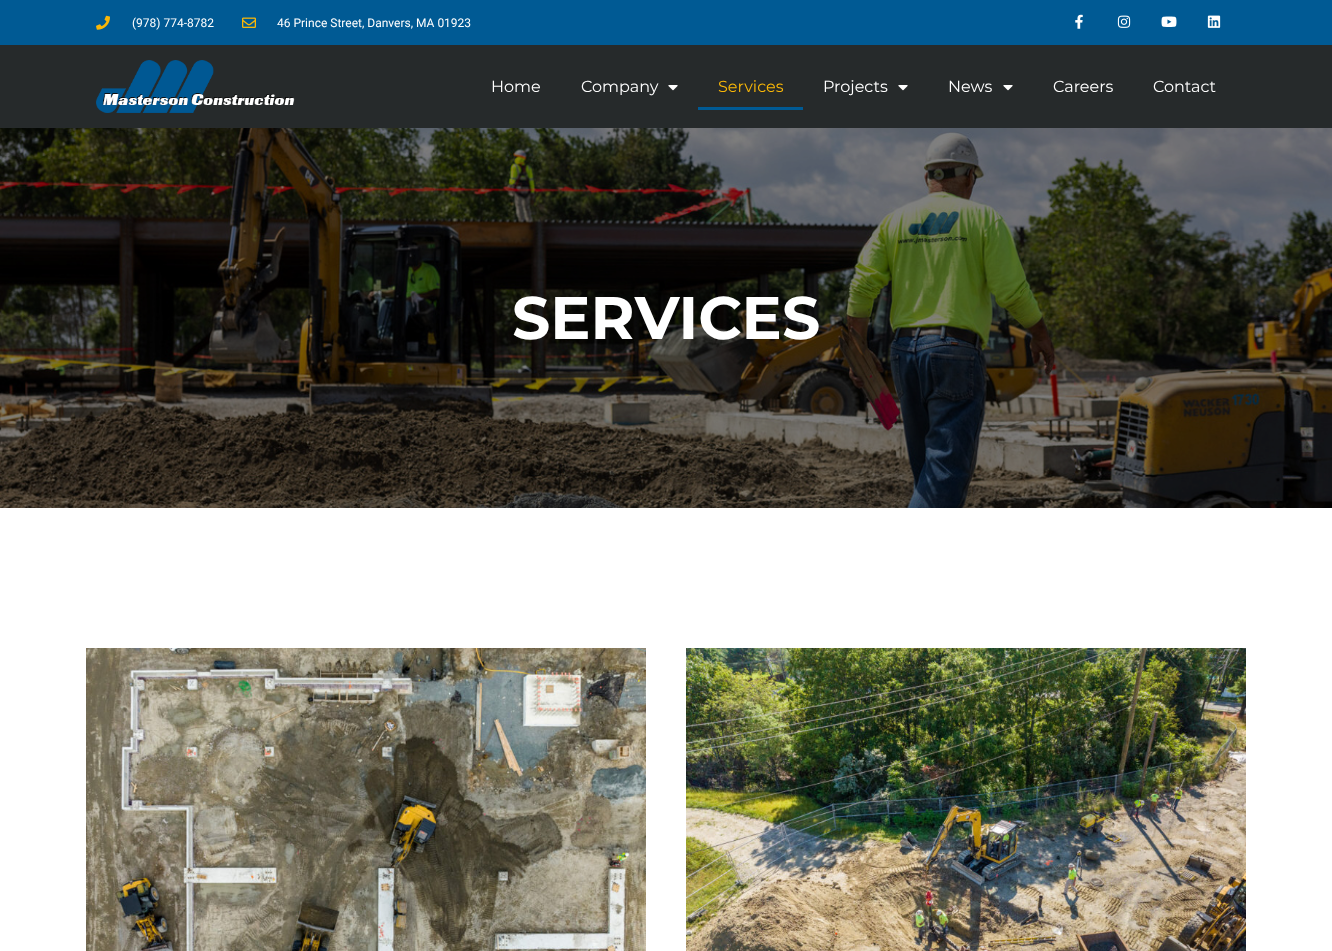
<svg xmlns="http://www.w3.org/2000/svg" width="1332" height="951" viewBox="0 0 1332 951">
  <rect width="100%" height="100%" fill="#fff"/>
  <path d="M0 0h1332v45H0z" fill="#005a94"/>
  <image x="96" y="15" width="14" height="15" href="img/1.png"/>
  <image x="242" y="17" width="14" height="11" href="img/2.png"/>
  <image x="1075" y="14" width="8" height="15" href="img/3.png"/>
  <image x="1117" y="15" width="14" height="13" href="img/4.png"/>
  <image x="1161" y="16" width="16" height="11" href="img/5.png"/>
  <image x="1207" y="15" width="14" height="13" href="img/6.png"/>
  <path d="M0 45h1332v83H0z" fill="#262a2b"/>
  <image x="96" y="60" width="199" height="53" href="img/7.png"/>
  <image x="668" y="85" width="10" height="6" href="img/8.png"/>
  <path d="M698 107h105v3H698z" fill="#005a94"/>
  <image x="898" y="85" width="10" height="6" href="img/8.png"/>
  <image x="1003" y="85" width="10" height="6" href="img/8.png"/>
  <image x="0" y="128" width="1332" height="380" href="img/9.png"/>
  <image x="86" y="648" width="560" height="303" href="img/10.png"/>
  <image x="686" y="648" width="560" height="303" href="img/11.png"/>
  <g font-family="Roboto" font-size="12" fill="#fff">
    <text x="132" y="27">(978) 774-8782</text>
    <text x="277" y="27">46 Prince Street, Danvers, MA 01923</text>
  </g>
  <g font-family="Montserrat" font-size="16" fill="#fff">
    <text x="491" y="92">Home</text>
    <text x="581" y="92">Company</text>
  </g>
  <text x="718" y="92" font-family="Montserrat" font-size="16" fill="#f9b707">Services</text>
  <g font-family="Montserrat" font-size="16" fill="#fff">
    <text x="823" y="92">Projects</text>
    <text x="948" y="92">News</text>
    <text x="1053" y="92">Careers</text>
    <text x="1153" y="92">Contact</text>
  </g>
  <text x="512" y="339" font-family="Montserrat" font-size="60" font-weight="bold" fill="#fff">SERVICES</text>
</svg>
